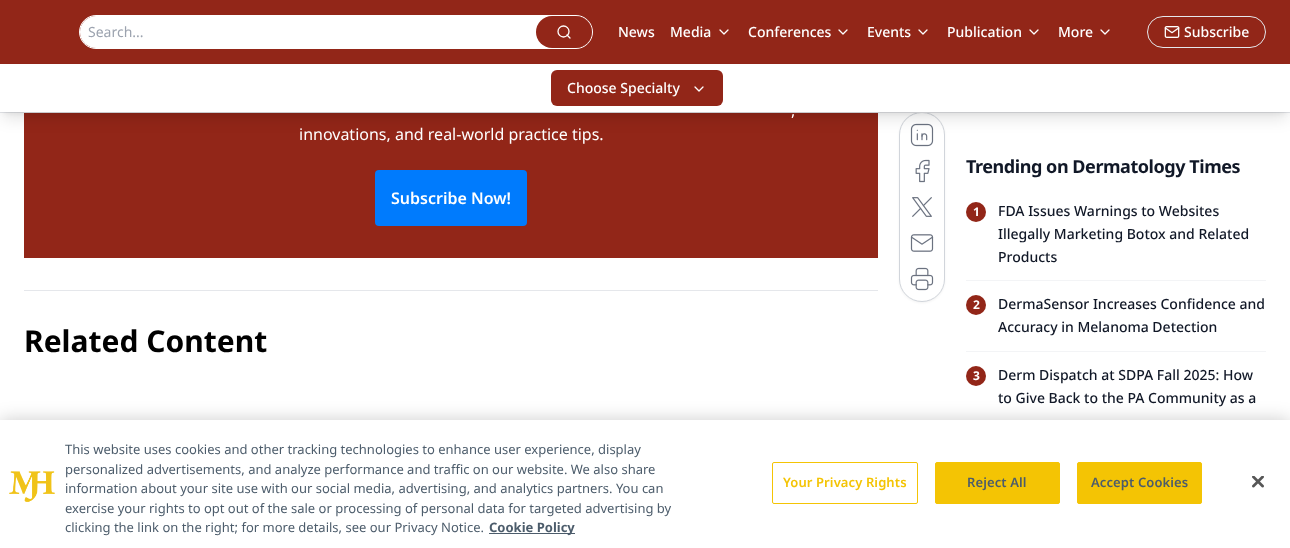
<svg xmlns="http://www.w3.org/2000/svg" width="1290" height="548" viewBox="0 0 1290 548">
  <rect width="100%" height="100%" fill="#fff"/>
  <path d="M0 0h1290v64H0z" fill="#922618"/>
  <rect x="899" y="113" width="46" height="190" rx="23" fill="#0000000d" filter="blur(1px)"/>
  <rect x="899.5" y="112.5" width="45" height="189" rx="22.5" fill="#fff" stroke="#d1d5db"/>
  <path d="M0 112h1290v1H0z" fill="#e5e7eb"/>
  <rect x="79.5" y="15.5" width="513" height="33" rx="16.5" fill="none" stroke="#fff"/>
  <rect x="80" y="16" width="512" height="32" rx="16" fill="#fff"/>
  <rect x="536" y="16" width="56" height="32" rx="16" fill="#922618"/>
  <circle cx="563.5" cy="31.5" r="5.5" fill="none" stroke="#fff" stroke-width="1.3"/>
  <path d="M570 38L567 35" fill="none" stroke="#fff" stroke-width="1.3" stroke-linecap="round" stroke-linejoin="round"/>
  <path d="M720 30L724 34L728 30" fill="none" stroke="#fff" stroke-width="1.3" stroke-linecap="round" stroke-linejoin="round"/>
  <path d="M839 30L843 34L847 30" fill="none" stroke="#fff" stroke-width="1.3" stroke-linecap="round" stroke-linejoin="round"/>
  <path d="M919 30L923 34L927 30" fill="none" stroke="#fff" stroke-width="1.3" stroke-linecap="round" stroke-linejoin="round"/>
  <path d="M1030 30L1034 34L1038 30" fill="none" stroke="#fff" stroke-width="1.3" stroke-linecap="round" stroke-linejoin="round"/>
  <path d="M1101 30L1105 34L1109 30" fill="none" stroke="#fff" stroke-width="1.3" stroke-linecap="round" stroke-linejoin="round"/>
  <rect x="1147.5" y="16.5" width="118" height="31" rx="15.5" fill="none" stroke="#e5e7eb"/>
  <image x="1164" y="26" width="16" height="12" href="img/1.png"/>
  <path d="M24 113h854v145H24z" fill="#922618"/>
  <path d="M4 72h1282v40H4z" fill="#0000001a" filter="blur(3px)"/>
  <image x="910" y="123" width="24" height="24" href="img/2.png"/>
  <path d="M3 77h1284v42H3z" fill="#0000001a" filter="blur(7.5px)"/>
  <path d="M0 66h1290v46H0z" fill="#fff"/>
  <rect x="551" y="70" width="172" height="36" rx="6" fill="#922618"/>
  <path d="M695 87L699 91L703 87" fill="none" stroke="#fff" stroke-width="1.3" stroke-linecap="round" stroke-linejoin="round"/>
  <rect x="375" y="170" width="152" height="56" rx="4" fill="#007bfd"/>
  <path d="M24 290h854v1H24z" fill="#e5e7eb"/>
  <image x="915" y="159" width="15" height="24" href="img/3.png"/>
  <image x="912" y="197" width="20" height="20" href="img/4.png"/>
  <image x="910" y="234" width="24" height="18" href="img/5.png"/>
  <image x="910" y="267" width="24" height="24" href="img/6.png"/>
  <circle cx="976" cy="212" r="10" fill="#922618"/>
  <path d="M966 280h300v1H966z" fill="#f3f4f6"/>
  <circle cx="976" cy="305" r="10" fill="#922618"/>
  <path d="M966 351h300v1H966z" fill="#f3f4f6"/>
  <circle cx="976" cy="376" r="10" fill="#922618"/>
  <path d="M0 420h1290v128H0z" fill="#00000033" filter="blur(9px)"/>
  <path d="M0 420h1290v128H0z" fill="#fff"/>
  <image x="9" y="471" width="46" height="31" href="img/7.png"/>
  <path d="M489 533h86v1H489z" fill="#4c5c6b"/>
  <rect x="772.5" y="462.5" width="145" height="41" rx="1.5" fill="none" stroke="#f4c404"/>
  <rect x="935.5" y="462.5" width="124" height="41" rx="1.5" fill="#f4c404" stroke="#f4c404"/>
  <rect x="1077.5" y="462.5" width="124" height="41" rx="1.5" fill="#f4c404" stroke="#f4c404"/>
  <image x="1252" y="476" width="12" height="12" href="img/8.png"/>
  <text x="88" y="37" font-family="Noto Sans" font-size="14" fill="#9ca3af">Search...</text>
  <g font-family="Noto Sans" font-size="14" font-weight="500" fill="#fff">
    <text x="618" y="37">News</text>
    <text x="670" y="37">Media</text>
    <text x="748" y="37">Conferences</text>
    <text x="867" y="37">Events</text>
    <text x="947" y="37">Publication</text>
    <text x="1058" y="37">More</text>
    <text x="1184" y="37">Subscribe</text>
    <text x="567" y="93">Choose Specialty</text>
  </g>
  <g font-family="Noto Sans" font-size="16" fill="#fff">
    <text x="791" y="116">,</text>
    <text x="299" y="140">innovations, and real-world practice tips.</text>
  </g>
  <text x="391" y="204" font-family="Noto Sans" font-size="16" font-weight="600" fill="#fff">Subscribe Now!</text>
  <text x="24" y="352" font-family="Noto Sans" font-size="30" font-weight="bold" fill="#000">Related Content</text>
  <text x="966" y="173" font-family="Noto Sans" font-size="18" font-weight="bold" letter-spacing="-0.45" fill="#111827">Trending on Dermatology Times</text>
  <text x="973" y="216" font-family="Noto Sans" font-size="12" font-weight="bold" fill="#fff">1</text>
  <g font-family="Noto Sans" font-size="14" font-weight="500" fill="#111827">
    <text x="998" y="216">FDA Issues Warnings to Websites</text>
    <text x="998" y="239">Illegally Marketing Botox and Related</text>
    <text x="998" y="262">Products</text>
  </g>
  <text x="973" y="309" font-family="Noto Sans" font-size="12" font-weight="bold" fill="#fff">2</text>
  <g font-family="Noto Sans" font-size="14" font-weight="500" fill="#111827">
    <text x="998" y="309">DermaSensor Increases Confidence and</text>
    <text x="998" y="332">Accuracy in Melanoma Detection</text>
  </g>
  <text x="973" y="380" font-family="Noto Sans" font-size="12" font-weight="bold" fill="#fff">3</text>
  <g font-family="Noto Sans" font-size="14" font-weight="500" fill="#111827">
    <text x="998" y="380">Derm Dispatch at SDPA Fall 2025: How</text>
    <text x="998" y="403">to Give Back to the PA Community as a</text>
  </g>
  <g font-family="Noto Sans" font-size="13" fill="#4c5c6b">
    <text x="65" y="454">This website uses cookies and other tracking technologies to enhance user experience, display</text>
    <text x="65" y="474">personalized advertisements, and analyze performance and traffic on our website. We also share</text>
    <text x="65" y="493">information about your site use with our social media, advertising, and analytics partners. You can</text>
    <text x="65" y="513">exercise your rights to opt out of the sale or processing of personal data for targeted advertising by</text>
    <text x="65" y="532">clicking the link on the right; for more details, see our Privacy Notice.</text>
  </g>
  <text x="489" y="532" font-family="Noto Sans" font-size="13" font-weight="bold" fill="#4c5c6b">Cookie Policy</text>
  <text x="783" y="487" font-family="Noto Sans" font-size="13" font-weight="600" letter-spacing="0.1" fill="#f4c404">Your Privacy Rights</text>
  <g font-family="Noto Sans" font-size="13" font-weight="600" letter-spacing="0.1" fill="#4c5c6b">
    <text x="967" y="487">Reject All</text>
    <text x="1091" y="487">Accept Cookies</text>
  </g>
</svg>
